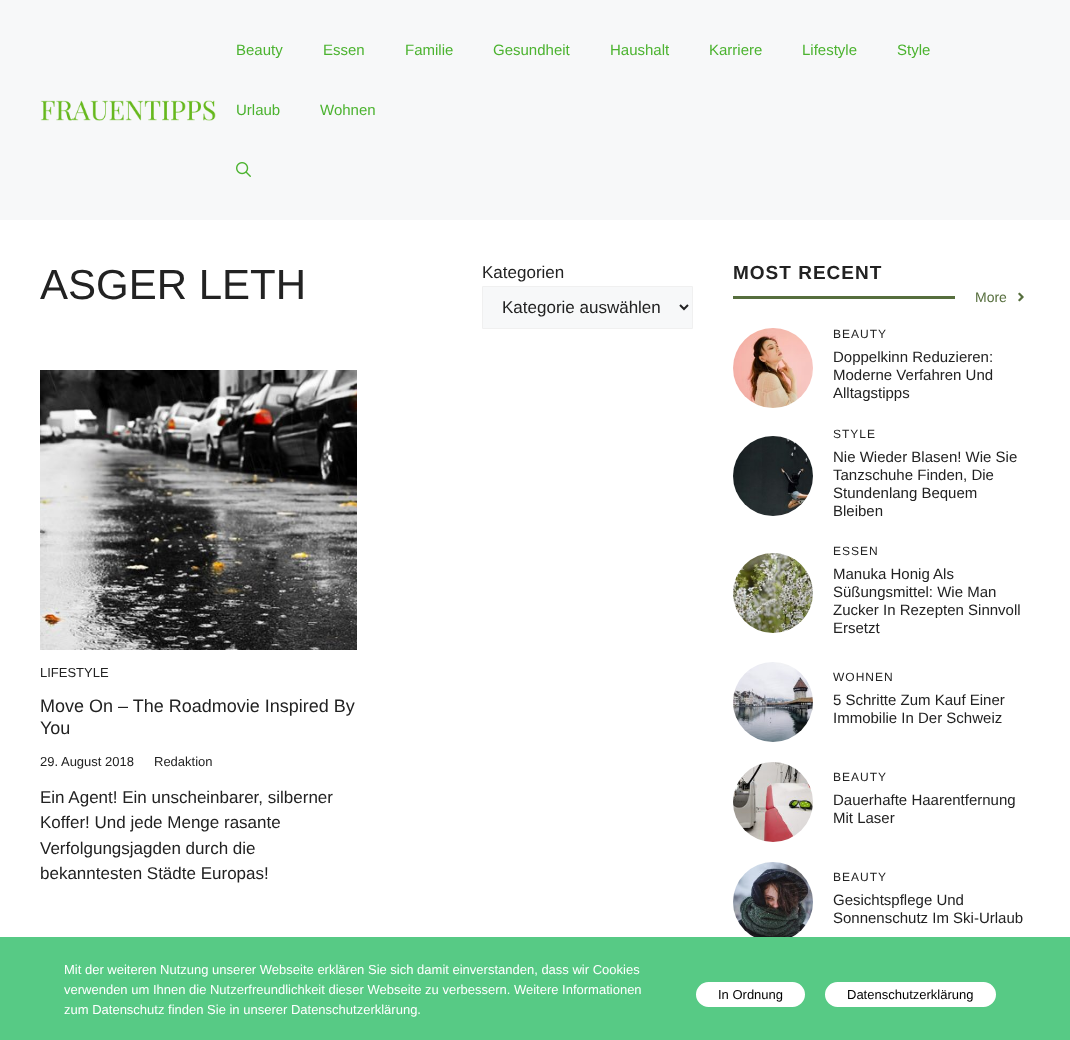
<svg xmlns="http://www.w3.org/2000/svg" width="1070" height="1040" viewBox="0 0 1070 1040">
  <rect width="100%" height="100%" fill="#fff"/>
  <path d="M0 0h1070v220H0z" fill="#f7f8f9"/>
  <image x="40" y="100" width="176" height="21" href="img/1.png"/>
  <image x="236" y="162" width="15" height="15" href="img/2.png"/>
  <path d="M482.5 286.5h210v42H482.5z" fill="#f7f8f9" stroke="#f0f0f0"/>
  <path d="M680 305L684 309L688 305" fill="none" stroke="#222" stroke-width="2"/>
  <image x="40" y="370" width="317" height="280" href="img/3.png"/>
  <path d="M733 296h222v3H733z" fill="#566e3d"/>
  <image x="1018" y="292" width="6" height="10" href="img/4.png"/>
  <image x="733" y="328" width="80" height="80" href="img/5.png"/>
  <image x="733" y="436" width="80" height="80" href="img/6.png"/>
  <image x="733" y="553" width="80" height="80" href="img/7.png"/>
  <image x="733" y="662" width="80" height="80" href="img/8.png"/>
  <image x="733" y="762" width="80" height="80" href="img/9.png"/>
  <image x="733" y="862" width="80" height="75" href="img/10.png"/>
  <path d="M0 937h1070v103H0z" fill="#57ca85"/>
  <rect x="697" y="983" width="107" height="23" rx="11.5" fill="#fff" stroke="#fff" stroke-width="2"/>
  <rect x="826" y="983" width="169" height="23" rx="11.5" fill="#fff" stroke="#fff" stroke-width="2"/>
  <g font-family="Liberation Sans" font-size="15" fill="#4cb330">
    <text x="236" y="55">Beauty</text>
    <text x="323" y="55">Essen</text>
    <text x="405" y="55">Familie</text>
    <text x="493" y="55">Gesundheit</text>
    <text x="610" y="55">Haushalt</text>
    <text x="709" y="55">Karriere</text>
    <text x="802" y="55">Lifestyle</text>
    <text x="897" y="55">Style</text>
    <text x="236" y="115">Urlaub</text>
    <text x="320" y="115">Wohnen</text>
  </g>
  <text x="40" y="299" font-family="Liberation Sans" font-size="42" fill="#222">ASGER LETH</text>
  <g font-family="Liberation Sans" font-size="17" fill="#222">
    <text x="482" y="278">Kategorien</text>
    <text x="502" y="313">Kategorie auswählen</text>
  </g>
  <text x="40" y="677" font-family="Liberation Sans" font-size="13" fill="#222">LIFESTYLE</text>
  <g font-family="Liberation Sans" font-size="18" fill="#222">
    <text x="40" y="712">Move On – The Roadmovie Inspired By</text>
    <text x="40" y="734">You</text>
  </g>
  <g font-family="Liberation Sans" font-size="13" fill="#222">
    <text x="40" y="766">29. August 2018</text>
    <text x="154" y="766">Redaktion</text>
  </g>
  <g font-family="Liberation Sans" font-size="17" fill="#222">
    <text x="40" y="803">Ein Agent! Ein unscheinbarer, silberner</text>
    <text x="40" y="828">Koffer! Und jede Menge rasante</text>
    <text x="40" y="854">Verfolgungsjagden durch die</text>
    <text x="40" y="879">bekanntesten Städte Europas!</text>
  </g>
  <text x="733" y="279" font-family="Liberation Sans" font-size="19" font-weight="bold" letter-spacing="1" fill="#222">MOST RECENT</text>
  <text x="975" y="302" font-family="Liberation Sans" font-size="14" fill="#566e3d">More</text>
  <text x="833" y="338" font-family="Liberation Sans" font-size="12" letter-spacing="1" fill="#222">BEAUTY</text>
  <g font-family="Liberation Sans" font-size="15" fill="#222">
    <text x="833" y="362">Doppelkinn Reduzieren:</text>
    <text x="833" y="380">Moderne Verfahren Und</text>
    <text x="833" y="398">Alltagstipps</text>
  </g>
  <text x="833" y="438" font-family="Liberation Sans" font-size="12" letter-spacing="1" fill="#222">STYLE</text>
  <g font-family="Liberation Sans" font-size="15" fill="#222">
    <text x="833" y="462">Nie Wieder Blasen! Wie Sie</text>
    <text x="833" y="480">Tanzschuhe Finden, Die</text>
    <text x="833" y="498">Stundenlang Bequem</text>
    <text x="833" y="516">Bleiben</text>
  </g>
  <text x="833" y="555" font-family="Liberation Sans" font-size="12" letter-spacing="1" fill="#222">ESSEN</text>
  <g font-family="Liberation Sans" font-size="15" fill="#222">
    <text x="833" y="579">Manuka Honig Als</text>
    <text x="833" y="597">Süßungsmittel: Wie Man</text>
    <text x="833" y="615">Zucker In Rezepten Sinnvoll</text>
    <text x="833" y="633">Ersetzt</text>
  </g>
  <text x="833" y="681" font-family="Liberation Sans" font-size="12" letter-spacing="1" fill="#222">WOHNEN</text>
  <g font-family="Liberation Sans" font-size="15" fill="#222">
    <text x="833" y="705">5 Schritte Zum Kauf Einer</text>
    <text x="833" y="723">Immobilie In Der Schweiz</text>
  </g>
  <text x="833" y="781" font-family="Liberation Sans" font-size="12" letter-spacing="1" fill="#222">BEAUTY</text>
  <g font-family="Liberation Sans" font-size="15" fill="#222">
    <text x="833" y="805">Dauerhafte Haarentfernung</text>
    <text x="833" y="823">Mit Laser</text>
  </g>
  <text x="833" y="881" font-family="Liberation Sans" font-size="12" letter-spacing="1" fill="#222">BEAUTY</text>
  <g font-family="Liberation Sans" font-size="15" fill="#222">
    <text x="833" y="905">Gesichtspflege Und</text>
    <text x="833" y="923">Sonnenschutz Im Ski-Urlaub</text>
  </g>
  <g font-family="Liberation Sans" font-size="13" fill="#fff">
    <text x="64" y="974">Mit der weiteren Nutzung unserer Webseite erklären Sie sich damit einverstanden, dass wir Cookies</text>
    <text x="64" y="994">verwenden um Ihnen die Nutzerfreundlichkeit dieser Webseite zu verbessern. Weitere Informationen</text>
    <text x="64" y="1014">zum Datenschutz finden Sie in unserer Datenschutzerklärung.</text>
  </g>
  <g font-family="Liberation Sans" font-size="13" fill="#000">
    <text x="718" y="999">In Ordnung</text>
    <text x="847" y="999">Datenschutzerklärung</text>
  </g>
</svg>
